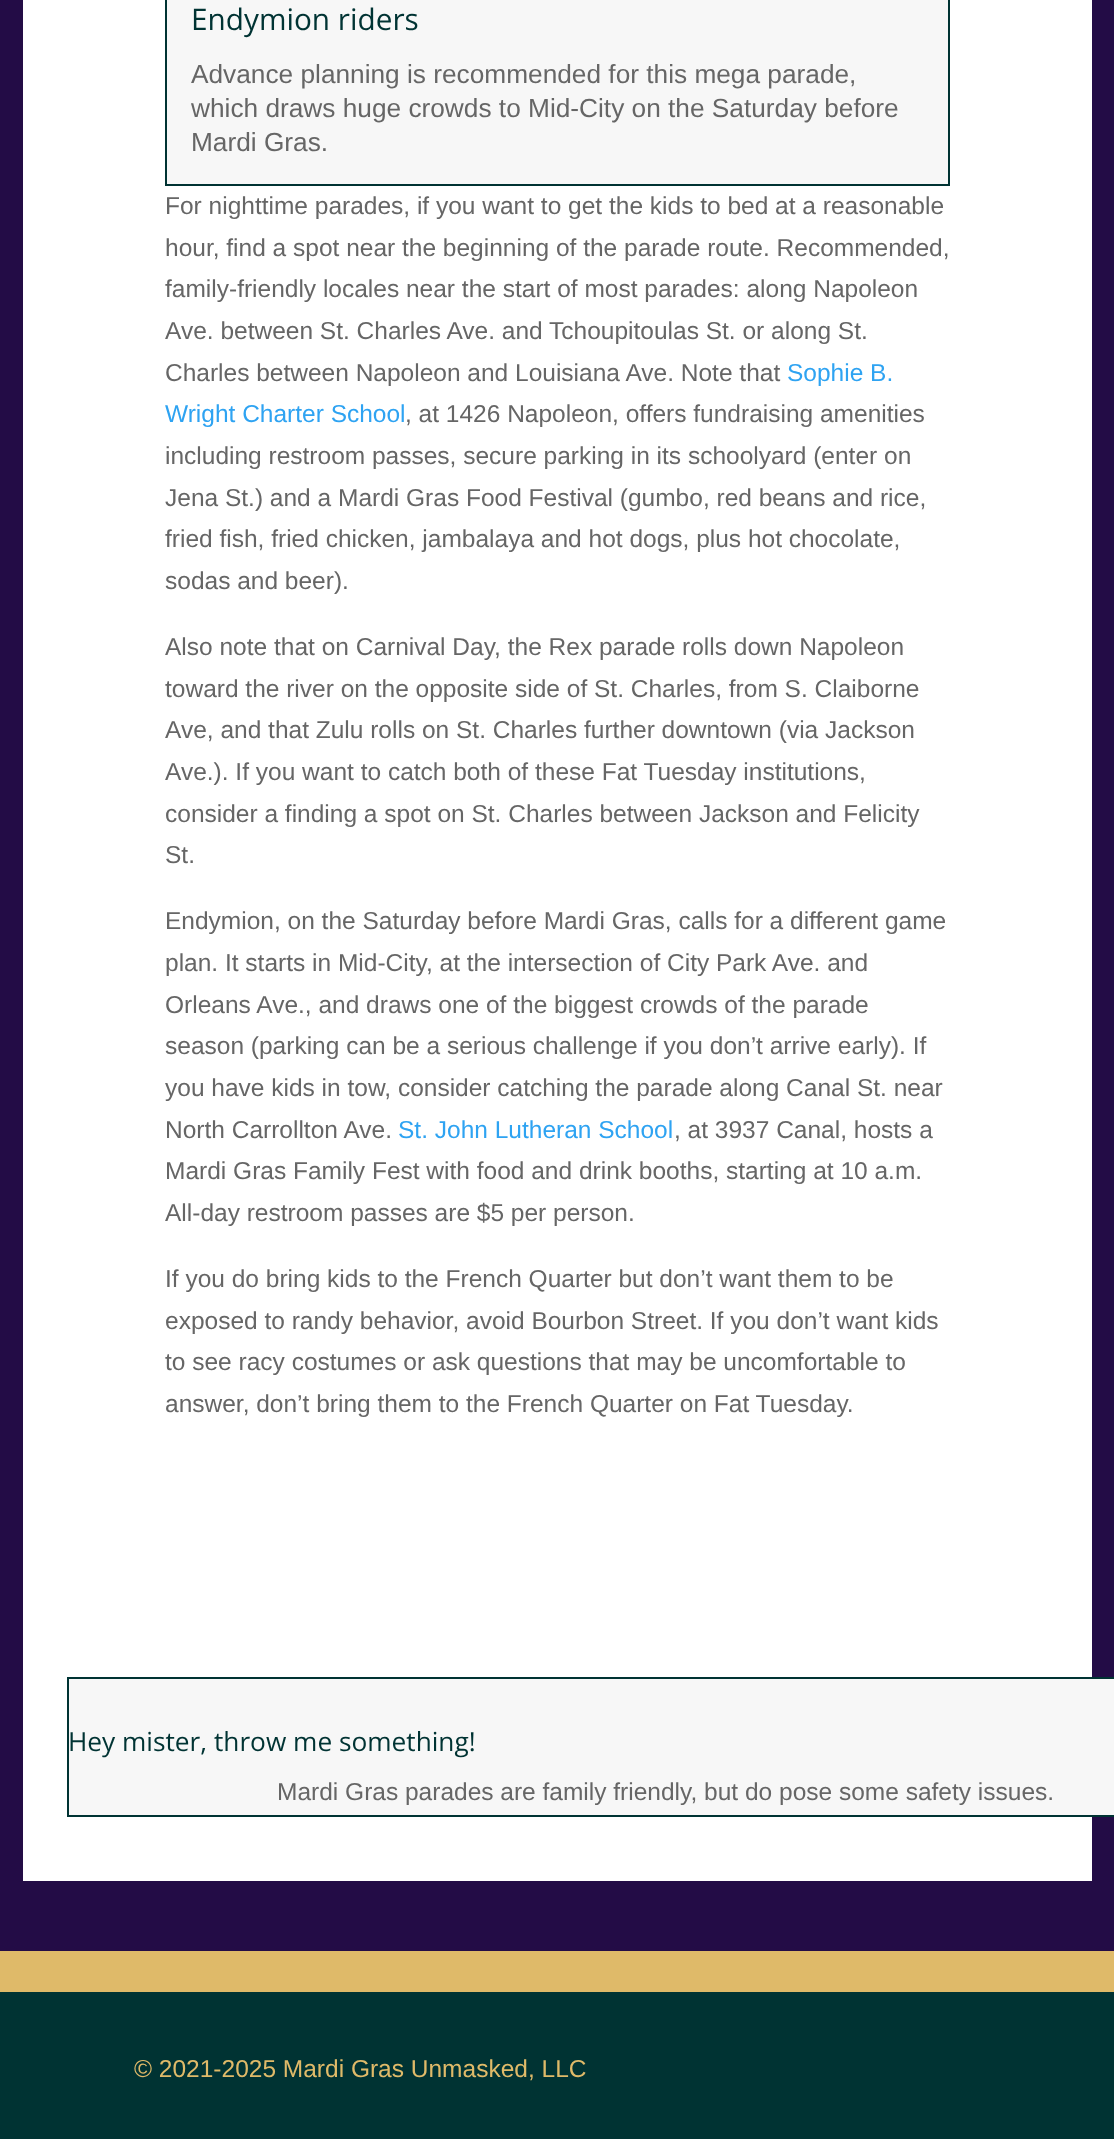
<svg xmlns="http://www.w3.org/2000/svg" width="1114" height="2139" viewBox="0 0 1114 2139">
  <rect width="100%" height="100%" fill="#230c46"/>
  <path d="M23 0h1069v1881H23z" fill="#fff"/>
  <path d="M166 -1h783v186H166z" fill="#f7f7f7" stroke="#033" stroke-width="2"/>
  <path d="M68 1678h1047v138H68z" fill="#f7f7f7" stroke="#033" stroke-width="2"/>
  <path d="M0 1992h1114v147H0z" fill="#033"/>
  <path d="M0 1951h1114v41H0z" fill="#dfba69"/>
  <text x="191" y="30" font-family="Open Sans" font-size="29.75" fill="#033">Endymion riders</text>
  <g font-family="Liberation Sans" font-size="26.25" fill="#666">
    <text x="191" y="83">Advance planning is recommended for this mega parade,</text>
    <text x="191" y="117">which draws huge crowds to Mid-City on the Saturday before</text>
    <text x="191" y="151">Mardi Gras.</text>
  </g>
  <g font-family="Liberation Sans" font-size="24.5" fill="#666">
    <text x="165" y="214">For nighttime parades, if you want to get the kids to bed at a reasonable</text>
    <text x="165" y="256">hour, find a spot near the beginning of the parade route. Recommended,</text>
    <text x="165" y="297">family-friendly locales near the start of most parades: along Napoleon</text>
    <text x="165" y="339">Ave. between St. Charles Ave. and Tchoupitoulas St. or along St.</text>
    <text x="165" y="381">Charles between Napoleon and Louisiana Ave. Note that</text>
  </g>
  <g font-family="Liberation Sans" font-size="24.5" fill="#2ea3f2">
    <text x="787" y="381">Sophie B.</text>
    <text x="165" y="422">Wright Charter School</text>
  </g>
  <g font-family="Liberation Sans" font-size="24.5" fill="#666">
    <text x="405" y="422">, at 1426 Napoleon, offers fundraising amenities</text>
    <text x="165" y="464">including restroom passes, secure parking in its schoolyard (enter on</text>
    <text x="165" y="506">Jena St.) and a Mardi Gras Food Festival (gumbo, red beans and rice,</text>
    <text x="165" y="547">fried fish, fried chicken, jambalaya and hot dogs, plus hot chocolate,</text>
    <text x="165" y="589">sodas and beer).</text>
    <text x="165" y="655">Also note that on Carnival Day, the Rex parade rolls down Napoleon</text>
    <text x="165" y="697">toward the river on the opposite side of St. Charles, from S. Claiborne</text>
    <text x="165" y="738">Ave, and that Zulu rolls on St. Charles further downtown (via Jackson</text>
    <text x="165" y="780">Ave.). If you want to catch both of these Fat Tuesday institutions,</text>
    <text x="165" y="822">consider a finding a spot on St. Charles between Jackson and Felicity</text>
    <text x="165" y="863">St.</text>
    <text x="165" y="929">Endymion, on the Saturday before Mardi Gras, calls for a different game</text>
    <text x="165" y="971">plan. It starts in Mid-City, at the intersection of City Park Ave. and</text>
    <text x="165" y="1013">Orleans Ave., and draws one of the biggest crowds of the parade</text>
    <text x="165" y="1054">season (parking can be a serious challenge if you don’t arrive early). If</text>
    <text x="165" y="1096">you have kids in tow, consider catching the parade along Canal St. near</text>
    <text x="165" y="1138">North Carrollton Ave.</text>
  </g>
  <text x="398" y="1138" font-family="Liberation Sans" font-size="24.5" fill="#2ea3f2">St. John Lutheran School</text>
  <g font-family="Liberation Sans" font-size="24.5" fill="#666">
    <text x="674" y="1138">, at 3937 Canal, hosts a</text>
    <text x="165" y="1179">Mardi Gras Family Fest with food and drink booths, starting at 10 a.m.</text>
    <text x="165" y="1221">All-day restroom passes are $5 per person.</text>
    <text x="165" y="1287">If you do bring kids to the French Quarter but don’t want them to be</text>
    <text x="165" y="1329">exposed to randy behavior, avoid Bourbon Street. If you don’t want kids</text>
    <text x="165" y="1370">to see racy costumes or ask questions that may be uncomfortable to</text>
    <text x="165" y="1412">answer, don’t bring them to the French Quarter on Fat Tuesday.</text>
  </g>
  <text x="68" y="1751" font-family="Open Sans" font-size="26.25" fill="#033">Hey mister, throw me something!</text>
  <text x="277" y="1800" font-family="Liberation Sans" font-size="24.5" fill="#666">Mardi Gras parades are family friendly, but do pose some safety issues.</text>
  <text x="134" y="2077" font-family="Liberation Sans" font-size="24.5" fill="#dfba69">© 2021-2025 Mardi Gras Unmasked, LLC</text>
</svg>
